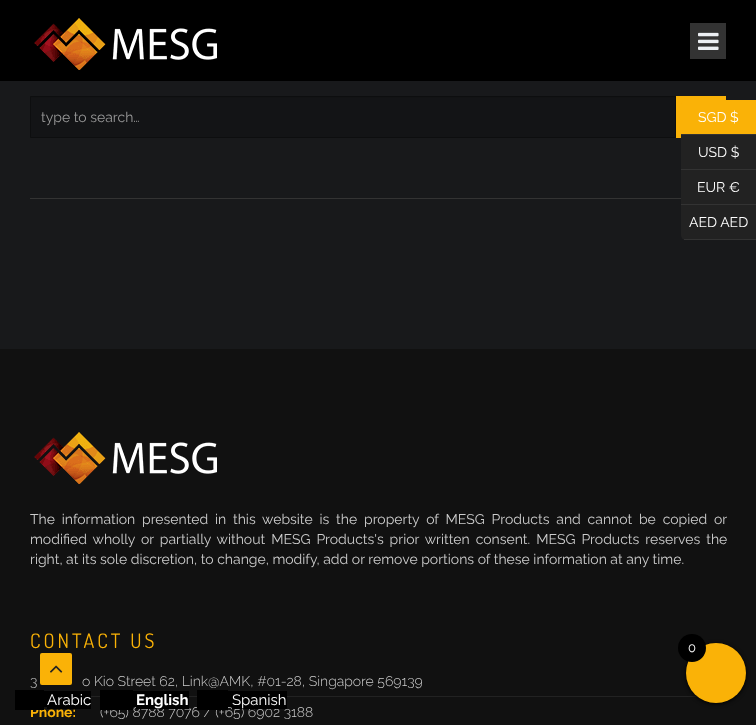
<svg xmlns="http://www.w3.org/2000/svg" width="756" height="725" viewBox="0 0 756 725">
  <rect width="100%" height="100%" fill="#18191b"/>
  <path d="M676 96h50v42H676z" fill="#fab207"/>
  <path d="M686 100H756V135H681V105C681 102 683 100 686 100Z" fill="#fab207"/>
  <path d="M681 134h75v1H681z" fill="#333"/>
  <path d="M681 135h75v34H681z" fill="#222"/>
  <path d="M681 169h75v1H681z" fill="#333"/>
  <path d="M681 170h75v34H681z" fill="#222"/>
  <path d="M681 204h75v1H681z" fill="#333"/>
  <path d="M681 205H756V240H686C683 240 681 238 681 235Z" fill="#222"/>
  <path d="M684 239h72v1H684z" fill="#333"/>
  <path d="M0 0h756v81H0z" fill="#000"/>
  <image x="34" y="18" width="183" height="52" href="img/1.png"/>
  <path d="M690 23h36v36H690z" fill="#333"/>
  <image x="698" y="32" width="21" height="18" href="img/2.png"/>
  <path d="M30 198h651v1H30z" fill="#333"/>
  <path d="M31 98h644v39H31z" fill="#131416"/>
  <path d="M31 97h644v1H31z" fill="#121314"/>
  <path d="M30.5 96.5h645v41H30.5z" fill="none" stroke="#0d0e0f"/>
  <path d="M0 349h756v376H0z" fill="#111"/>
  <image x="34" y="432" width="183" height="52" href="img/3.png"/>
  <path d="M91 696h607v1H91z" fill="#222"/>
  <rect x="40" y="653" width="32" height="32" rx="2" fill="#fab207"/>
  <image x="50" y="665" width="13" height="8" href="img/4.png"/>
  <rect x="686" y="644" width="60" height="60" rx="30" fill="#000" filter="blur(2px)"/>
  <circle cx="716" cy="673" r="30" fill="#fab207"/>
  <circle cx="692" cy="648" r="14" fill="#000"/>
  <g font-family="Raleway" font-size="14" font-weight="100" fill="#fff">
    <text x="698" y="122">SGD $</text>
    <text x="698" y="157">USD $</text>
    <text x="697" y="192">EUR €</text>
    <text x="689" y="227">AED AED</text>
  </g>
  <text x="41" y="122" font-family="Raleway" font-size="14" font-weight="100" fill="#999">type to search…</text>
  <g font-family="Raleway" font-size="14" font-weight="100" fill="#ccc">
    <text x="30" y="524" word-spacing="3.25">The information presented in this website is the property of MESG Products and cannot be copied or</text>
    <text x="30" y="544" word-spacing="2.4">modified wholly or partially without MESG Products's prior written consent. MESG Products reserves the</text>
    <text x="30" y="564">right, at its sole discretion, to change, modify, add or remove portions of these information at any time.</text>
  </g>
  <text x="30" y="648" font-family="Dosis" font-size="20" letter-spacing="3" fill="#fab207">CONTACT US</text>
  <g font-family="Raleway" font-size="14" font-weight="300" fill="#ccc">
    <text x="30" y="686">3</text>
    <text x="82" y="686">o Kio Street 62, Link@AMK, #01-28, Singapore 569139</text>
  </g>
  <text x="30" y="717" font-family="Raleway" font-size="14" font-weight="bold" fill="#fab207">Phone:</text>
  <text x="100" y="717" font-family="Raleway" font-size="14" font-weight="300" fill="#ccc">(+65) 8788 7076 / (+65) 6902 3188</text>
  <text x="688" y="652" font-family="Raleway" font-size="13" font-weight="100" fill="#fff">0</text>
  <path d="M15 690h29v20H15z" fill="#000"/>
  <path d="M44 691h3v16H44z" fill="#000"/>
  <path d="M47 691h44v18H47z" fill="#000"/>
  <text x="47" y="705" font-family="Raleway" font-size="15" font-weight="100" fill="#fff">Arabic</text>
  <path d="M100 690h33v20H100z" fill="#000"/>
  <path d="M133 691h3v16H133z" fill="#000"/>
  <path d="M136 691h53v18H136z" fill="#000"/>
  <text x="136" y="705" font-family="Raleway" font-size="15" font-weight="bold" fill="#fff">English</text>
  <path d="M197 690h31v20H197z" fill="#000"/>
  <path d="M228 691h4v16H228z" fill="#000"/>
  <path d="M232 691h55v18H232z" fill="#000"/>
  <text x="232" y="705" font-family="Raleway" font-size="15" font-weight="100" fill="#fff">Spanish</text>
</svg>
